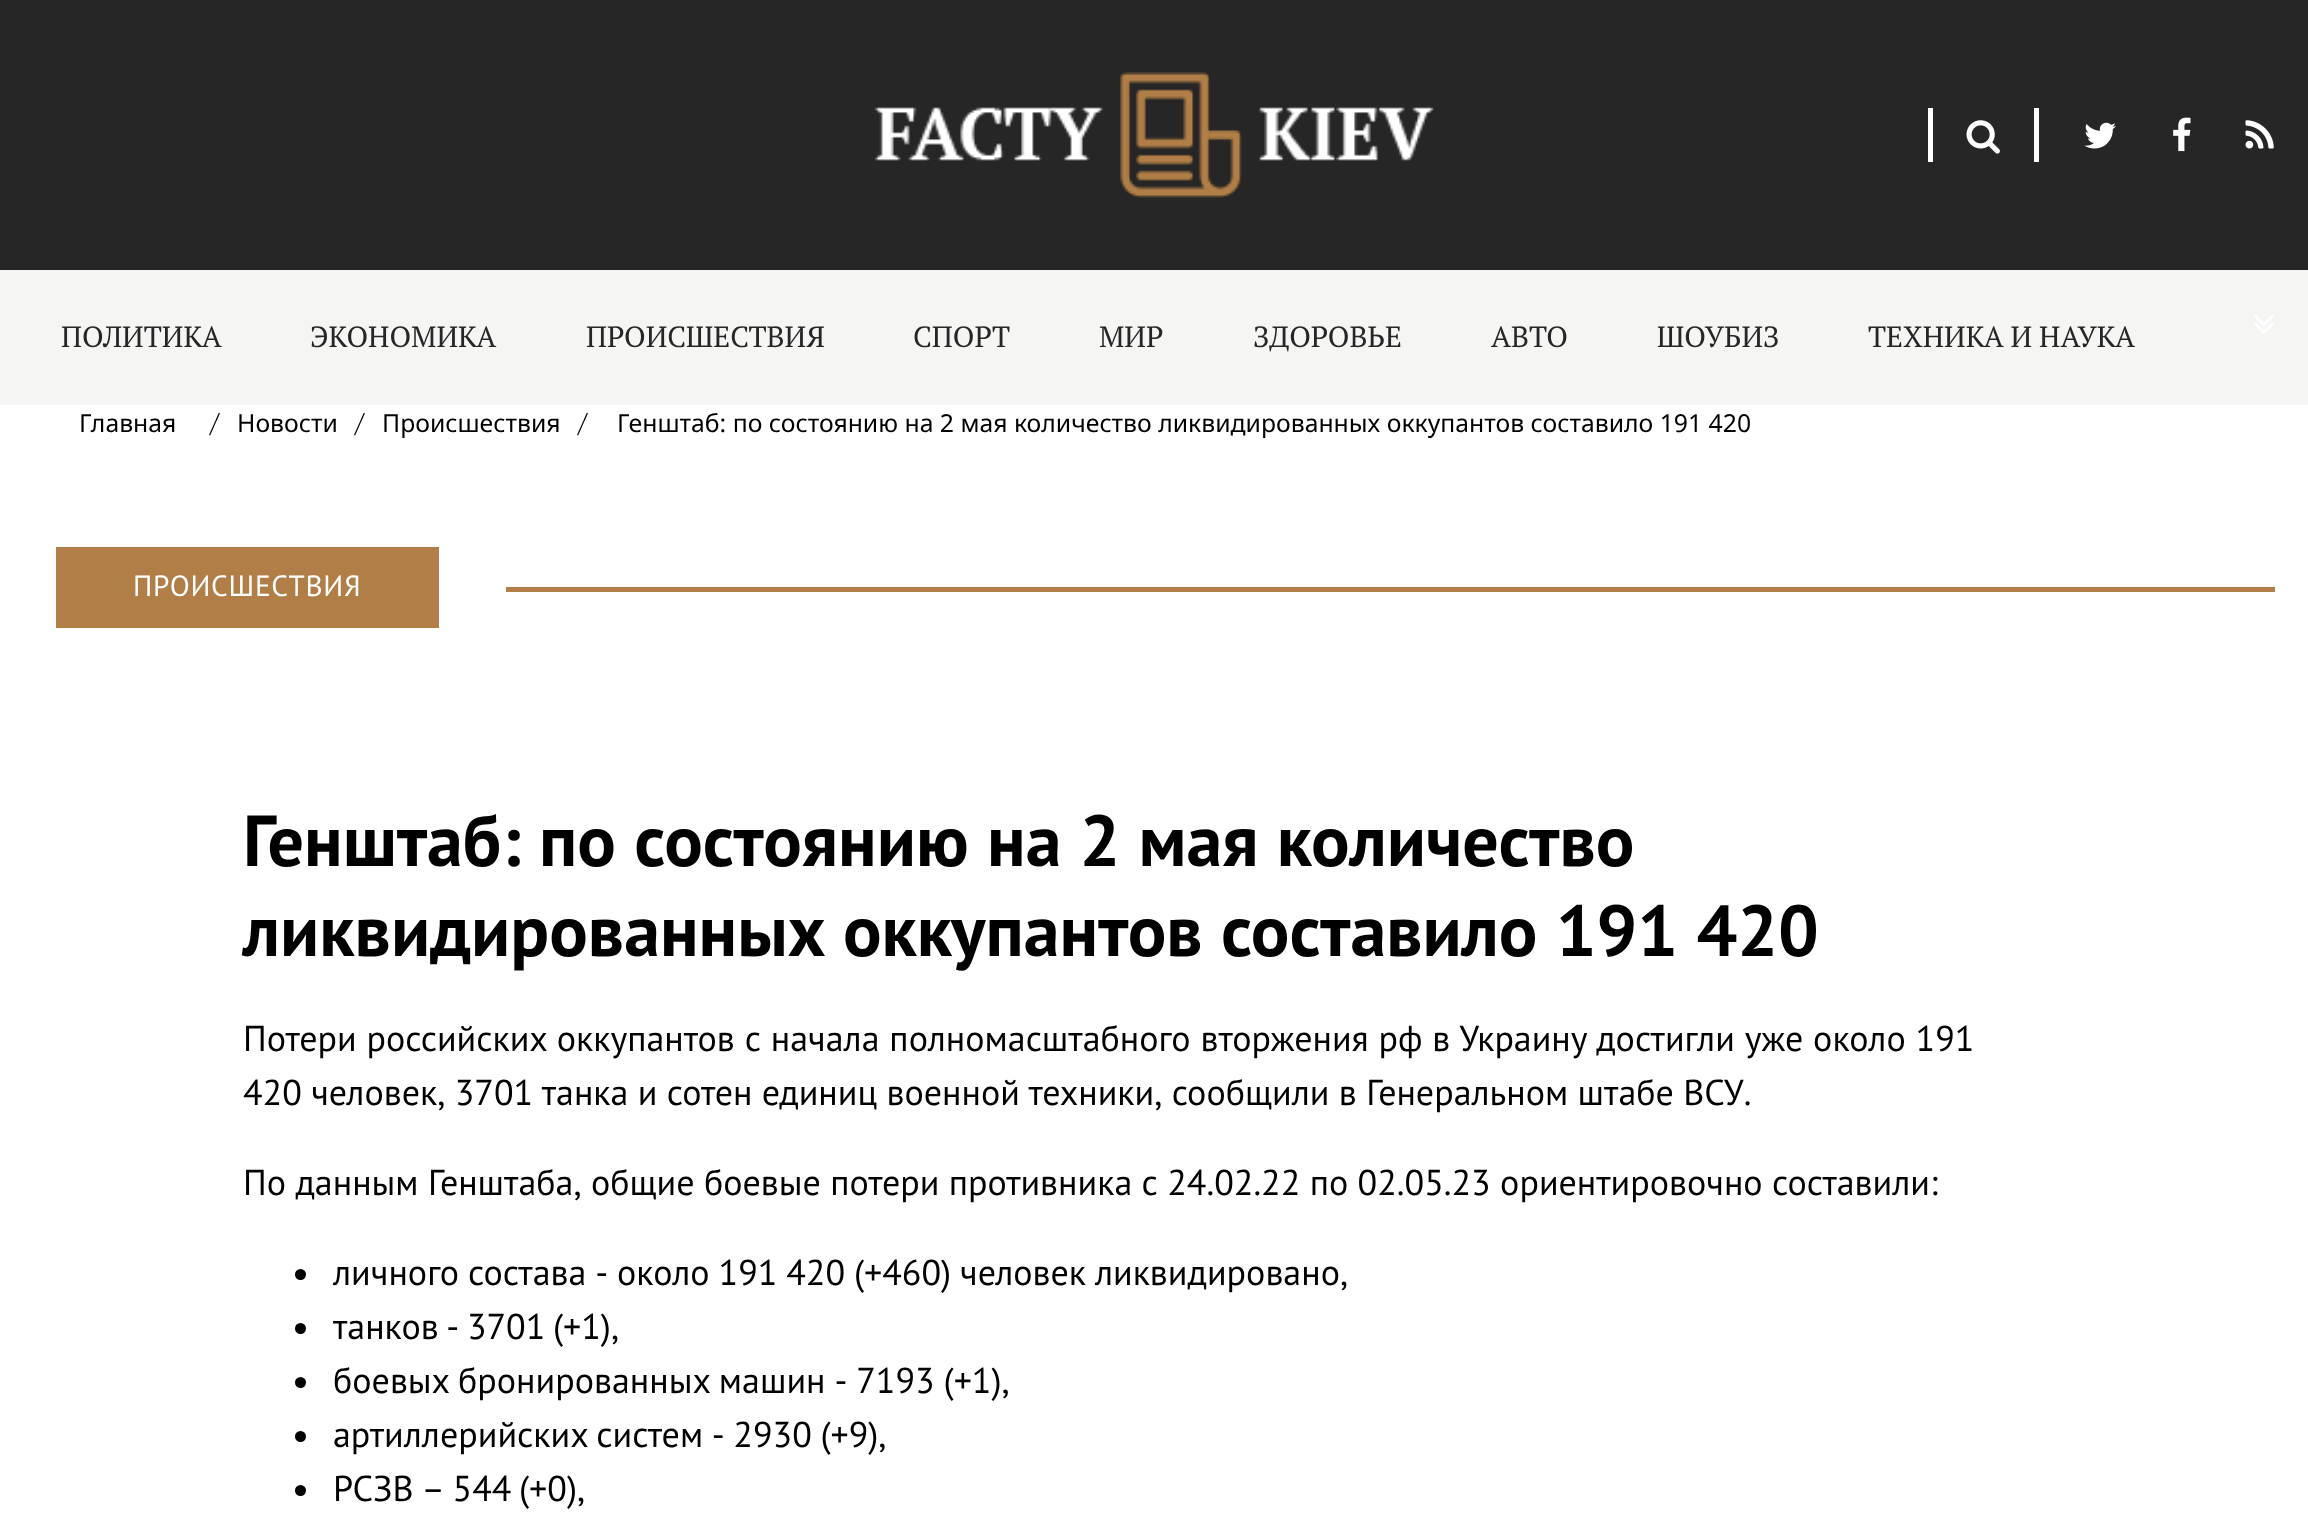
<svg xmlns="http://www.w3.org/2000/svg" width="2308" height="1527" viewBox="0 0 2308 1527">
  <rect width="100%" height="100%" fill="#fff"/>
  <path d="M0 0h2308v270H0z" fill="#262626"/>
  <image x="875" y="72" width="559" height="126" href="img/1.png"/>
  <path d="M2034 108h5v54H2034z" fill="#fff"/>
  <path d="M1928 108h5v54H1928z" fill="#fff"/>
  <image x="1966" y="120" width="34" height="34" href="img/2.png"/>
  <image x="2084" y="122" width="32" height="27" href="img/3.png"/>
  <image x="2173" y="117" width="18" height="35" href="img/4.png"/>
  <image x="2245" y="120" width="29" height="29" href="img/5.png"/>
  <path d="M0 270h2308v135H0z" fill="#f5f5f4"/>
  <image x="2254" y="315" width="20" height="19" href="img/6.png"/>
  <path d="M56 547h383v81H56z" fill="#b07e46"/>
  <path d="M506 587h1769v5H506z" fill="#b07e46"/>
  <circle cx="300.5" cy="1274.5" r="5.5" fill="#000"/>
  <circle cx="300.5" cy="1328.5" r="5.5" fill="#000"/>
  <circle cx="300.5" cy="1382.5" r="5.5" fill="#000"/>
  <circle cx="300.5" cy="1436.5" r="5.5" fill="#000"/>
  <circle cx="300.5" cy="1490.5" r="5.5" fill="#000"/>
  <g font-family="PT Serif" font-size="29.25" fill="#262626">
    <text x="61" y="347">ПОЛИТИКА</text>
    <text x="310" y="347">ЭКОНОМИКА</text>
    <text x="586" y="347">ПРОИСШЕСТВИЯ</text>
    <text x="913" y="347">СПОРТ</text>
    <text x="1099" y="347">МИР</text>
    <text x="1253" y="347">ЗДОРОВЬЕ</text>
    <text x="1491" y="347">АВТО</text>
    <text x="1657" y="347">ШОУБИЗ</text>
    <text x="1868" y="347">ТЕХНИКА И НАУКА</text>
  </g>
  <text x="79" y="432" font-family="Noto Sans" font-size="24.75" fill="#000">Главная</text>
  <text x="210" y="432" font-family="PT Serif" font-size="27" fill="#000">/</text>
  <text x="237" y="432" font-family="Noto Sans" font-size="24.75" fill="#000">Новости</text>
  <text x="355" y="432" font-family="PT Serif" font-size="27" fill="#000">/</text>
  <text x="382" y="432" font-family="Noto Sans" font-size="24.75" fill="#000">Происшествия</text>
  <text x="578" y="432" font-family="PT Serif" font-size="27" fill="#000">/</text>
  <text x="617" y="432" font-family="Noto Sans" font-size="24.75" fill="#000">Генштаб: по состоянию на 2 мая количество ликвидированных оккупантов составило 191 420</text>
  <text x="133" y="596" font-family="PT Sans" font-size="29.25" letter-spacing="0.75" fill="#fff">ПРОИСШЕСТВИЯ</text>
  <g font-family="PT Sans" font-size="72" font-weight="bold" fill="#000">
    <text x="243" y="866">Генштаб: по состоянию на 2 мая количество</text>
    <text x="243" y="956">ликвидированных оккупантов составило 191 420</text>
  </g>
  <g font-family="PT Sans" font-size="36" fill="#000">
    <text x="243" y="1051" word-spacing="0.25">Потери российских оккупантов с начала полномасштабного вторжения рф в Украину достигли уже около 191</text>
    <text x="243" y="1105" word-spacing="-0.25">420 человек, 3701 танка и сотен единиц военной техники, сообщили в Генеральном штабе ВСУ.</text>
    <text x="243" y="1195" word-spacing="-0.25">По данным Генштаба, общие боевые потери противника с 24.02.22 по 02.05.23 ориентировочно составили:</text>
    <text x="333" y="1285" word-spacing="-0.75">личного состава - около 191 420 (+460) человек ликвидировано,</text>
    <text x="333" y="1339" word-spacing="-2">танков - 3701 (+1),</text>
    <text x="333" y="1393" word-spacing="-0.75">боевых бронированных машин - 7193 (+1),</text>
    <text x="333" y="1447" word-spacing="-1">артиллерийских систем - 2930 (+9),</text>
    <text x="333" y="1501" word-spacing="-2">РСЗВ – 544 (+0),</text>
  </g>
</svg>
